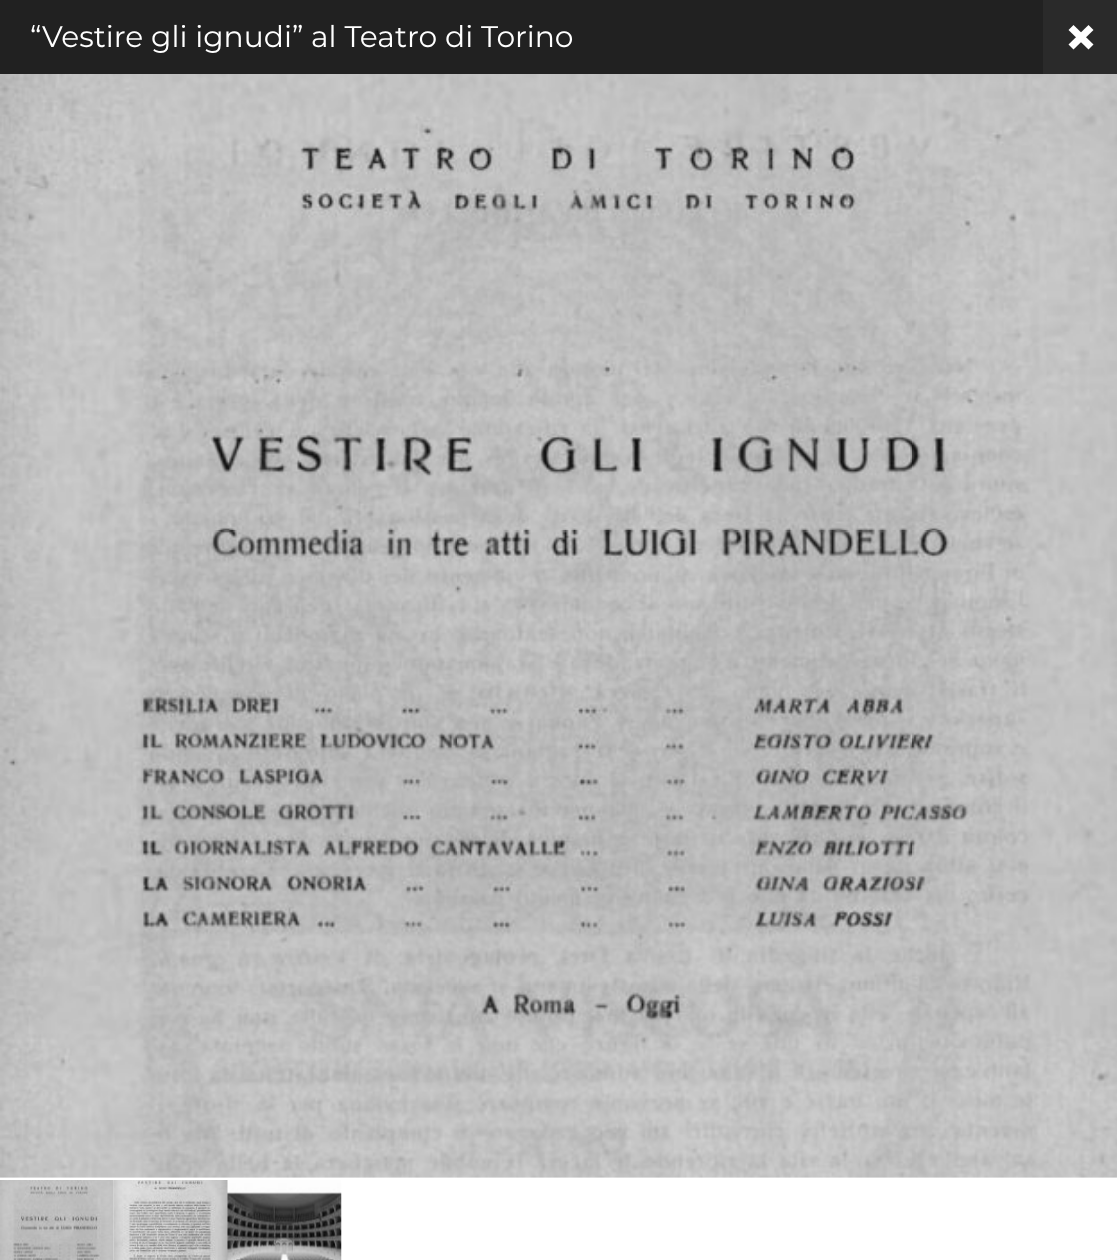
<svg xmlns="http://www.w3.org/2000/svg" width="1117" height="1260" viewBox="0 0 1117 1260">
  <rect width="100%" height="100%" fill="#fff"/>
  <path d="M0 0h1043v74H0z" fill="#212121"/>
  <path d="M1043 0h74v74H1043z" fill="#2a2a2a"/>
  <path d="M1088.5 25L1093.5 30L1073.5 49.5L1068.5 44.5Z" fill="#fff"/>
  <path d="M1073.5 25L1093.5 44.5L1088.5 49.5L1068.5 30Z" fill="#fff"/>
  <image x="0" y="74" width="1117" height="1104" href="img/1.png"/>
  <image x="0" y="1180" width="114" height="80" href="img/2.png"/>
  <image x="114" y="1180" width="114" height="80" href="img/3.png"/>
  <image x="227" y="1180" width="115" height="80" href="img/4.png"/>
  <text x="30" y="47" font-family="Montserrat" font-size="29.75" font-weight="100" fill="#fff">“Vestire gli ignudi” al Teatro di Torino</text>
</svg>
